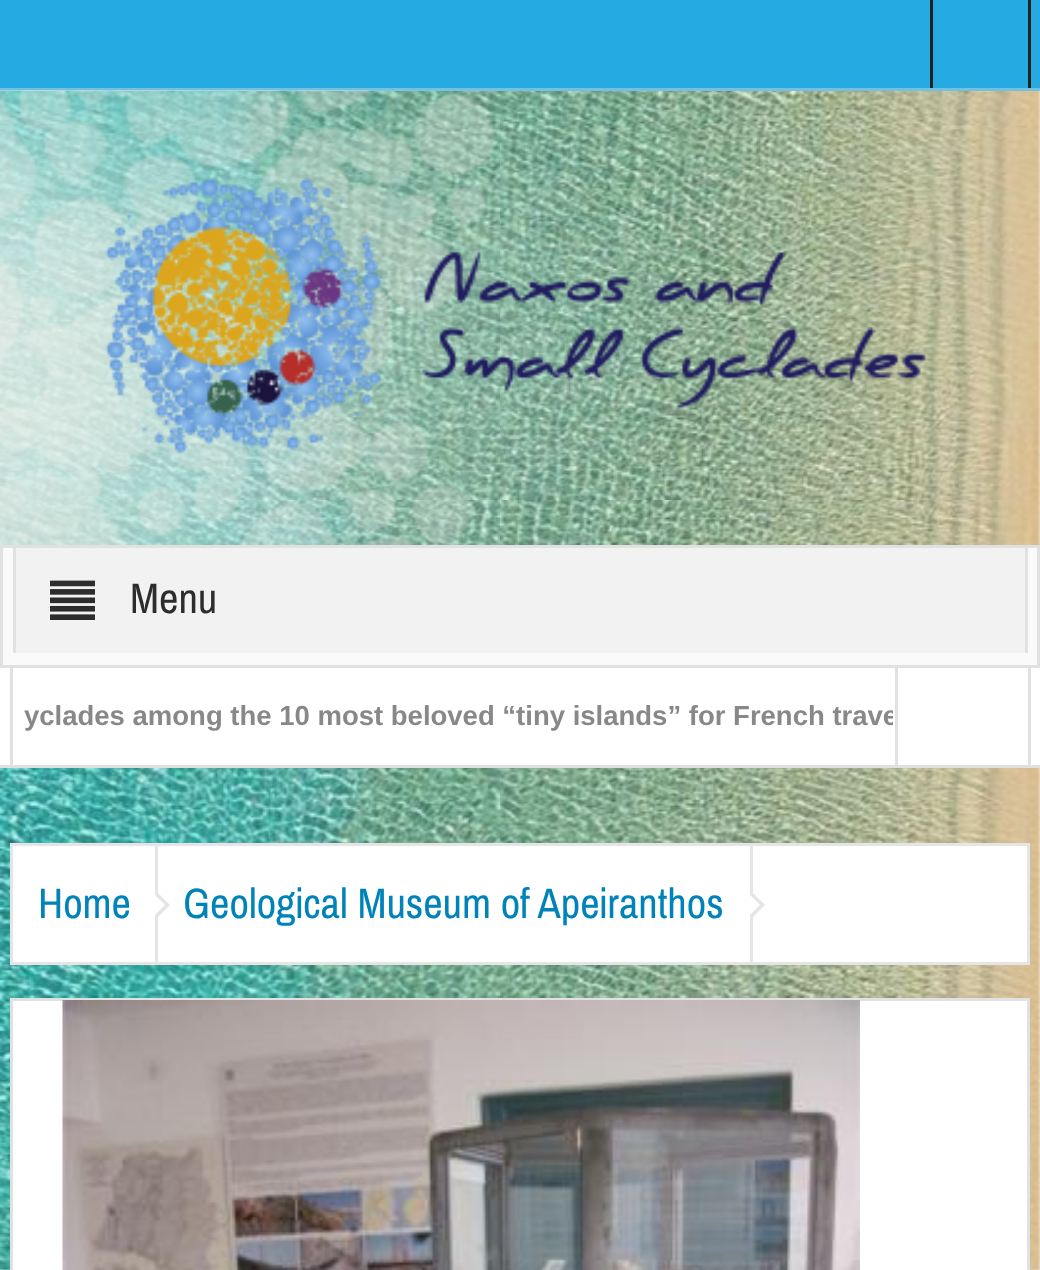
<svg xmlns="http://www.w3.org/2000/svg" width="1040" height="1270" viewBox="0 0 1040 1270">
  <defs>
    <clipPath id="clip1"><path d="M13 668h880v97H13z"/></clipPath>
  </defs>
  <rect width="100%" height="100%" fill="#fff"/>
  <image x="0" y="91" width="1040" height="1179" href="img/1.png"/>
  <path d="M0 0h1040v88H0z" fill="#25aae1"/>
  <path d="M0 88h1040v3H0z" fill="#74c0e0"/>
  <path d="M1028 0h3v88H1028z" fill="#222"/>
  <path d="M930 0h3v88H930z" fill="#222"/>
  <image x="0" y="90" width="694" height="455" href="img/2.png"/>
  <image x="104" y="177" width="822" height="277" href="img/3.png"/>
  <path d="M1.5 546.5h1037v120H1.5z" fill="#fafafa" stroke="#e1e1e1" stroke-width="3"/>
  <path d="M16 548h1009v105H16z" fill="#f2f2f2"/>
  <path d="M1025 548h3v105H1025z" fill="#e1e1e1"/>
  <path d="M13 548h3v105H13z" fill="#e1e1e1"/>
  <image x="50" y="580" width="45" height="40" href="img/4.png"/>
  <path d="M0 668h1040v97H0z" fill="#fff"/>
  <path d="M0 765h1040v3H0z" fill="#e1e1e1"/>
  <path d="M895 668h3v100H895z" fill="#e1e1e1"/>
  <path d="M10 668h3v100H10z" fill="#e1e1e1"/>
  <path d="M1028 668h3v100H1028z" fill="#e1e1e1"/>
  <path d="M11.5 844.5h1017v119H11.5z" fill="#fff" stroke="#e5e5e5" stroke-width="3"/>
  <path d="M155 845h3v118H155z" fill="#e5e5e5"/>
  <path d="M155 920V890L170 905Z" fill="#e5e5e5"/>
  <path d="M155 915V895L165 905Z" fill="#fff"/>
  <path d="M750 845h3v118H750z" fill="#e5e5e5"/>
  <path d="M750 920V890L765 905Z" fill="#e5e5e5"/>
  <path d="M750 915V895L760 905Z" fill="#fff"/>
  <path d="M11.5 999.5h1017v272H11.5z" fill="#fff" stroke="#e1e1e1" stroke-width="3"/>
  <image x="62" y="1000" width="798" height="270" href="img/5.png"/>
  <text x="130" y="613" font-family="Archivo Narrow" font-size="42.5" fill="#2d2d2d">Menu</text>
  <g clip-path="url(#clip1)">
    <text x="24" y="725" font-family="Liberation Sans" font-size="27.5" font-weight="bold" fill="#888">yclades among the 10 most beloved “tiny islands” for French trave</text>
  </g>
  <g font-family="Archivo Narrow" font-size="42.5" fill="#0083b9">
    <text x="38" y="918">Home</text>
    <text x="183" y="918">Geological Museum of Apeiranthos</text>
  </g>
</svg>
